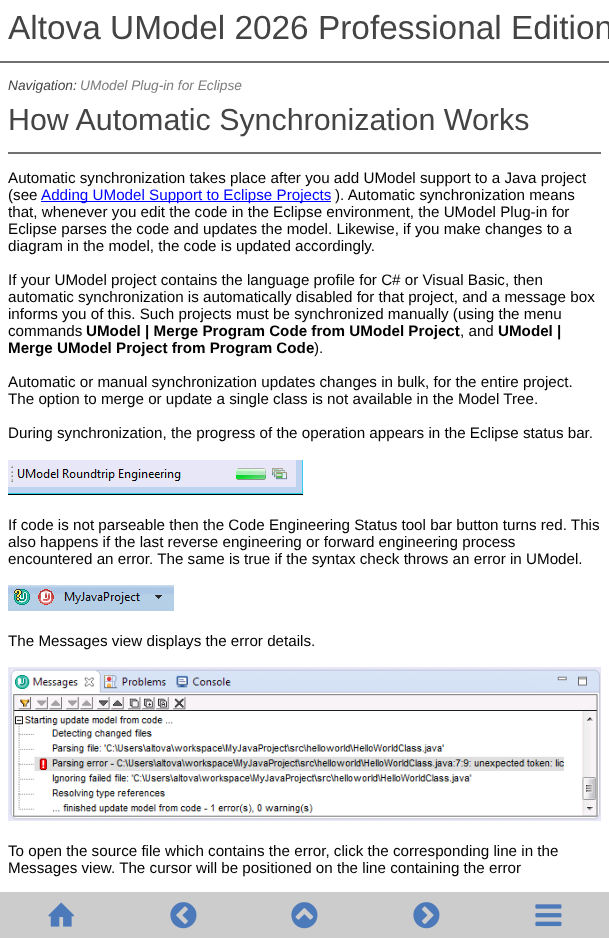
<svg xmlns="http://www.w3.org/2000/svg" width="609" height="938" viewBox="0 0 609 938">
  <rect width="100%" height="100%" fill="#fff"/>
  <path d="M0 61h609v2H0z" fill="#707070"/>
  <path d="M8 152h593v2H8z" fill="#707070"/>
  <path d="M41 201h290v1H41z" fill="#00f"/>
  <image x="8" y="460" width="295" height="35" href="img/1.png"/>
  <image x="8" y="585" width="166" height="26" href="img/2.png"/>
  <image x="8" y="667" width="593" height="154" href="img/3.png"/>
  <path d="M0 892h609v46H0z" fill="#ccc"/>
  <image x="48" y="902" width="27" height="25" href="img/4.png"/>
  <image x="170" y="902" width="27" height="27" href="img/5.png"/>
  <image x="291" y="902" width="27" height="27" href="img/6.png"/>
  <image x="413" y="902" width="27" height="27" href="img/7.png"/>
  <image x="535" y="904" width="27" height="23" href="img/8.png"/>
  <text x="8" y="39" font-family="Liberation Sans" font-size="33.4" fill="#444">Altova UModel 2026 Professional Edition</text>
  <text x="8" y="90" font-family="Liberation Sans" font-size="13.75" font-style="italic" fill="#444">Navigation:</text>
  <text x="80" y="90" font-family="Liberation Sans" font-size="13.75" font-style="italic" fill="#7c7c7c">UModel Plug-in for Eclipse</text>
  <text x="8" y="130" font-family="Liberation Sans" font-size="30.4" fill="#444">How Automatic Synchronization Works</text>
  <g font-family="Liberation Sans" font-size="15.2" fill="#000">
    <text x="8" y="183">Automatic synchronization takes place after you add UModel support to a Java project</text>
    <text x="8" y="200">(see</text>
  </g>
  <text x="41" y="200" font-family="Liberation Sans" font-size="15.2" fill="#00f">Adding UModel Support to Eclipse Projects</text>
  <g font-family="Liberation Sans" font-size="15.2" fill="#000">
    <text x="335" y="200">). Automatic synchronization means</text>
    <text x="8" y="217">that, whenever you edit the code in the Eclipse environment, the UModel Plug-in for</text>
    <text x="8" y="234">Eclipse parses the code and updates the model. Likewise, if you make changes to a</text>
    <text x="8" y="251">diagram in the model, the code is updated accordingly.</text>
    <text x="8" y="285">If your UModel project contains the language profile for C# or Visual Basic, then</text>
    <text x="8" y="302">automatic synchronization is automatically disabled for that project, and a message box</text>
    <text x="8" y="319">informs you of this. Such projects must be synchronized manually (using the menu</text>
    <text x="8" y="336">commands</text>
  </g>
  <text x="86" y="336" font-family="Liberation Sans" font-size="15.2" font-weight="bold" fill="#000">UModel | Merge Program Code from UModel Project</text>
  <text x="460" y="336" font-family="Liberation Sans" font-size="15.2" fill="#000">, and</text>
  <g font-family="Liberation Sans" font-size="15.2" font-weight="bold" fill="#000">
    <text x="498" y="336">UModel |</text>
    <text x="8" y="353">Merge UModel Project from Program Code</text>
  </g>
  <g font-family="Liberation Sans" font-size="15.2" fill="#000">
    <text x="314" y="353">).</text>
    <text x="8" y="387">Automatic or manual synchronization updates changes in bulk, for the entire project.</text>
    <text x="8" y="404">The option to merge or update a single class is not available in the Model Tree.</text>
    <text x="8" y="438">During synchronization, the progress of the operation appears in the Eclipse status bar.</text>
    <text x="8" y="530">If code is not parseable then the Code Engineering Status tool bar button turns red. This</text>
    <text x="8" y="547">also happens if the last reverse engineering or forward engineering process</text>
    <text x="8" y="564">encountered an error. The same is true if the syntax check throws an error in UModel.</text>
    <text x="8" y="646">The Messages view displays the error details.</text>
    <text x="8" y="856">To open the source file which contains the error, click the corresponding line in the</text>
    <text x="8" y="873">Messages view. The cursor will be positioned on the line containing the error</text>
  </g>
</svg>
